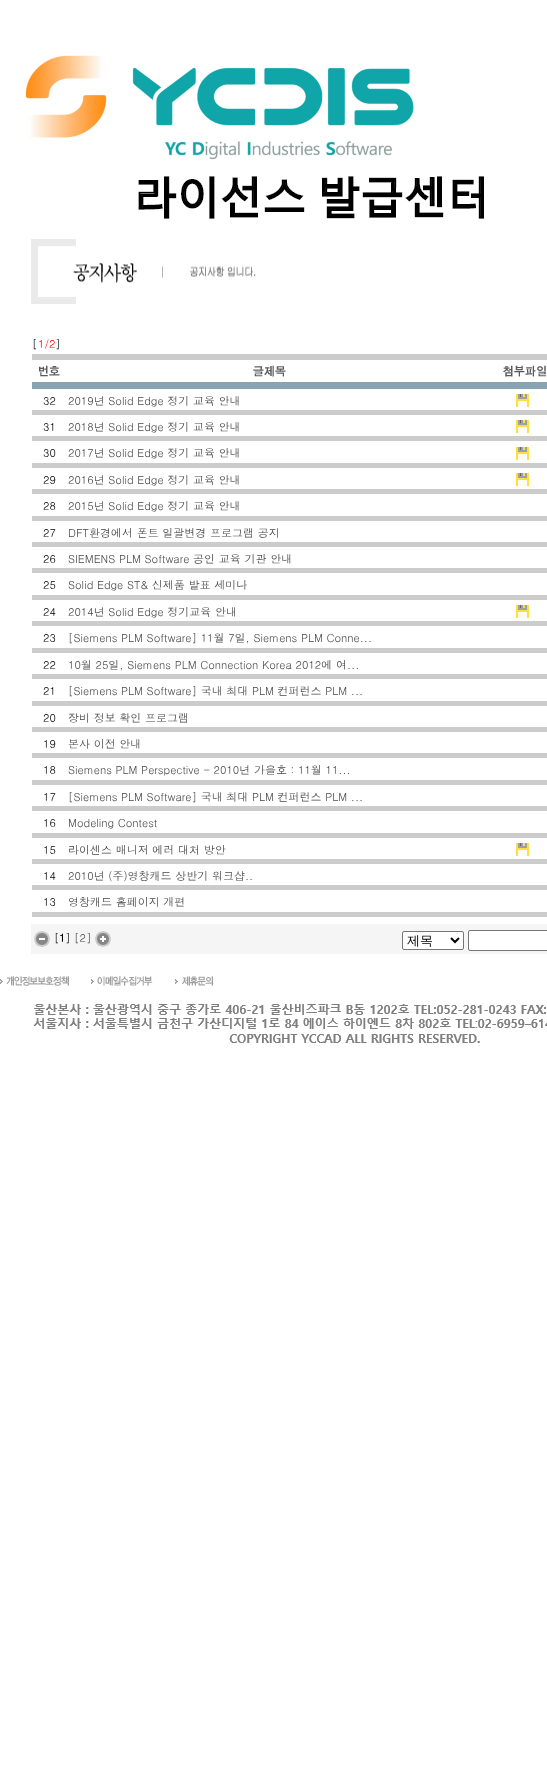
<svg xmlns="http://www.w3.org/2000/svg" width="547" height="1782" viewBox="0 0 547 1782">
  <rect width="100%" height="100%" fill="#fff"/>
  <image x="25" y="55" width="459" height="164" href="img/1.png"/>
  <image x="31" y="239" width="225" height="65" href="img/2.png"/>
  <path d="M32 354h515v6H32z" fill="#ccc"/>
  <image x="39" y="365" width="21" height="12" href="img/3.png"/>
  <image x="253" y="365" width="33" height="12" href="img/4.png"/>
  <image x="503" y="365" width="43" height="12" href="img/5.png"/>
  <path d="M32 382h515v7H32z" fill="#88a4b3"/>
  <image x="516" y="394" width="13" height="13" href="img/6.png"/>
  <path d="M32 410h515v5H32z" fill="#ccc"/>
  <image x="516" y="420" width="13" height="13" href="img/6.png"/>
  <path d="M32 436h515v5H32z" fill="#ccc"/>
  <image x="516" y="447" width="13" height="13" href="img/6.png"/>
  <path d="M32 463h515v5H32z" fill="#ccc"/>
  <image x="516" y="473" width="13" height="13" href="img/6.png"/>
  <path d="M32 489h515v5H32z" fill="#ccc"/>
  <path d="M32 516h515v5H32z" fill="#ccc"/>
  <path d="M32 542h515v5H32z" fill="#ccc"/>
  <path d="M32 568h515v5H32z" fill="#ccc"/>
  <path d="M32 595h515v5H32z" fill="#ccc"/>
  <image x="516" y="605" width="13" height="13" href="img/6.png"/>
  <path d="M32 621h515v5H32z" fill="#ccc"/>
  <path d="M32 648h515v5H32z" fill="#ccc"/>
  <path d="M32 674h515v5H32z" fill="#ccc"/>
  <path d="M32 701h515v5H32z" fill="#ccc"/>
  <path d="M32 727h515v5H32z" fill="#ccc"/>
  <path d="M32 753h515v5H32z" fill="#ccc"/>
  <path d="M32 780h515v5H32z" fill="#ccc"/>
  <path d="M32 806h515v5H32z" fill="#ccc"/>
  <path d="M32 833h515v5H32z" fill="#ccc"/>
  <image x="516" y="843" width="13" height="13" href="img/6.png"/>
  <path d="M32 859h515v5H32z" fill="#ccc"/>
  <path d="M32 885h515v5H32z" fill="#ccc"/>
  <path d="M32 912h515v5H32z" fill="#ccc"/>
  <path d="M31 924h516v30H31z" fill="#f5f5f5"/>
  <image x="34" y="931" width="16" height="16" href="img/7.png"/>
  <image x="95" y="931" width="16" height="16" href="img/8.png"/>
  <rect x="402.5" y="931.5" width="61" height="18" rx="1.5" fill="#fff" stroke="#767676"/>
  <path d="M451 938L455 942L459 938" fill="none" stroke="#000" stroke-width="2"/>
  <rect x="468.5" y="930.5" width="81" height="20" rx="1.5" fill="#fff" stroke="#767676"/>
  <image x="0" y="976" width="69" height="10" href="img/9.png"/>
  <image x="91" y="976" width="62" height="10" href="img/10.png"/>
  <image x="175" y="976" width="38" height="10" href="img/11.png"/>
  <image x="33" y="1004" width="514" height="39" href="img/12.png"/>
  <text x="32" y="348" font-family="Dotum" font-size="11" fill="#000">[</text>
  <text x="38" y="348" font-family="Dotum" font-size="11" fill="#f00">1/2</text>
  <g font-family="Dotum" font-size="11" fill="#000">
    <text x="55" y="348">]</text>
    <text x="43" y="405">32</text>
  </g>
  <text x="68" y="405" font-family="Dotum" font-size="11" fill="#494949">2019년 Solid Edge 정기 교육 안내</text>
  <text x="43" y="431" font-family="Dotum" font-size="11" fill="#000">31</text>
  <text x="68" y="431" font-family="Dotum" font-size="11" fill="#494949">2018년 Solid Edge 정기 교육 안내</text>
  <text x="43" y="457" font-family="Dotum" font-size="11" fill="#000">30</text>
  <text x="68" y="457" font-family="Dotum" font-size="11" fill="#494949">2017년 Solid Edge 정기 교육 안내</text>
  <text x="43" y="484" font-family="Dotum" font-size="11" fill="#000">29</text>
  <text x="68" y="484" font-family="Dotum" font-size="11" fill="#494949">2016년 Solid Edge 정기 교육 안내</text>
  <text x="43" y="510" font-family="Dotum" font-size="11" fill="#000">28</text>
  <text x="68" y="510" font-family="Dotum" font-size="11" fill="#494949">2015년 Solid Edge 정기 교육 안내</text>
  <text x="43" y="537" font-family="Dotum" font-size="11" fill="#000">27</text>
  <text x="68" y="537" font-family="Dotum" font-size="11" fill="#494949">DFT환경에서 폰트 일괄변경 프로그램 공지</text>
  <text x="43" y="563" font-family="Dotum" font-size="11" fill="#000">26</text>
  <text x="68" y="563" font-family="Dotum" font-size="11" fill="#494949">SIEMENS PLM Software 공인 교육 기관 안내</text>
  <text x="43" y="589" font-family="Dotum" font-size="11" fill="#000">25</text>
  <text x="68" y="589" font-family="Dotum" font-size="11" fill="#494949">Solid Edge ST&amp; 신제품 발표 세미나</text>
  <text x="43" y="616" font-family="Dotum" font-size="11" fill="#000">24</text>
  <text x="68" y="616" font-family="Dotum" font-size="11" fill="#494949">2014년 Solid Edge 정기교육 안내</text>
  <text x="43" y="642" font-family="Dotum" font-size="11" fill="#000">23</text>
  <text x="68" y="642" font-family="Dotum" font-size="11" fill="#494949">[Siemens PLM Software] 11월 7일, Siemens PLM Conne...</text>
  <text x="43" y="669" font-family="Dotum" font-size="11" fill="#000">22</text>
  <text x="68" y="669" font-family="Dotum" font-size="11" fill="#494949">10월 25일, Siemens PLM Connection Korea 2012에 여...</text>
  <text x="43" y="695" font-family="Dotum" font-size="11" fill="#000">21</text>
  <text x="68" y="695" font-family="Dotum" font-size="11" fill="#494949">[Siemens PLM Software] 국내 최대 PLM 컨퍼런스 PLM ...</text>
  <text x="43" y="722" font-family="Dotum" font-size="11" fill="#000">20</text>
  <text x="68" y="722" font-family="Dotum" font-size="11" fill="#494949">장비 정보 확인 프로그램</text>
  <text x="43" y="748" font-family="Dotum" font-size="11" fill="#000">19</text>
  <text x="68" y="748" font-family="Dotum" font-size="11" fill="#494949">본사 이전 안내</text>
  <text x="43" y="774" font-family="Dotum" font-size="11" fill="#000">18</text>
  <text x="68" y="774" font-family="Dotum" font-size="11" fill="#494949">Siemens PLM Perspective - 2010년 가을호 : 11월 11...</text>
  <text x="43" y="801" font-family="Dotum" font-size="11" fill="#000">17</text>
  <text x="68" y="801" font-family="Dotum" font-size="11" fill="#494949">[Siemens PLM Software] 국내 최대 PLM 컨퍼런스 PLM ...</text>
  <text x="43" y="827" font-family="Dotum" font-size="11" fill="#000">16</text>
  <text x="68" y="827" font-family="Dotum" font-size="11" fill="#494949">Modeling Contest</text>
  <text x="43" y="854" font-family="Dotum" font-size="11" fill="#000">15</text>
  <text x="68" y="854" font-family="Dotum" font-size="11" fill="#494949">라이센스 매니저 에러 대처 방안</text>
  <text x="43" y="880" font-family="Dotum" font-size="11" fill="#000">14</text>
  <text x="68" y="880" font-family="Dotum" font-size="11" fill="#494949">2010년 (주)영창캐드 상반기 워크샵..</text>
  <text x="43" y="906" font-family="Dotum" font-size="11" fill="#000">13</text>
  <text x="68" y="906" font-family="Dotum" font-size="11" fill="#494949">영창캐드 홈페이지 개편</text>
  <text x="54" y="942" font-family="Dotum" font-size="11" fill="#000">[</text>
  <text x="59" y="942" font-family="Dotum" font-size="11" font-weight="bold" letter-spacing="-1" fill="#000">1</text>
  <text x="65" y="942" font-family="Dotum" font-size="11" fill="#000">]</text>
  <text x="74" y="942" font-family="Dotum" font-size="11" fill="#494949">[2]</text>
  <text x="407" y="945" font-family="WenQuanYi Zen Hei" font-size="13" font-weight="500" fill="#000">제목</text>
</svg>
